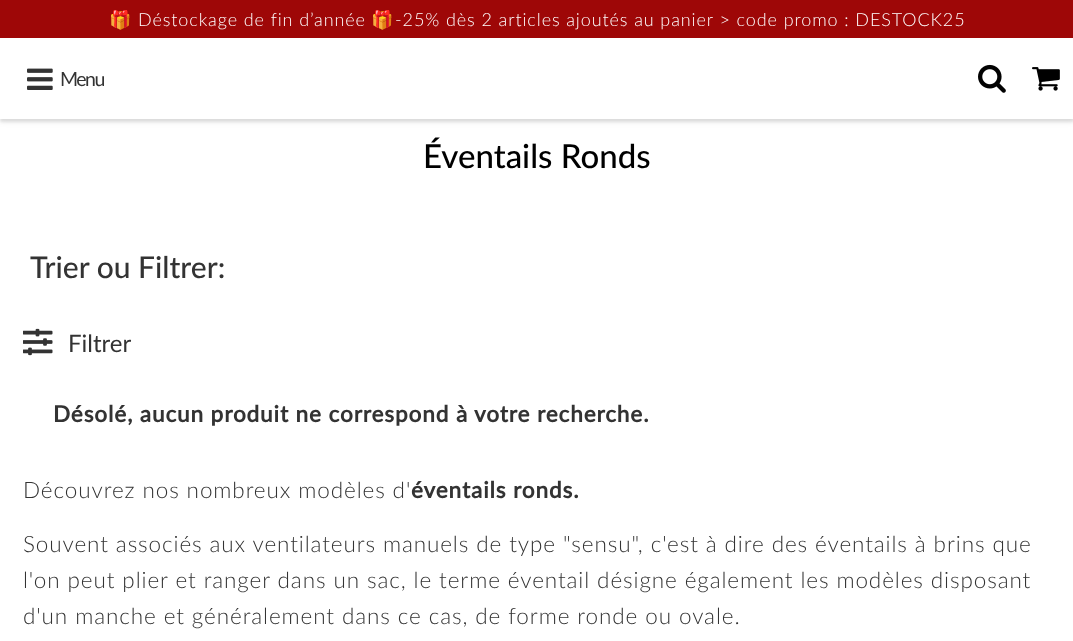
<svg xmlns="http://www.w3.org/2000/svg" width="1073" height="641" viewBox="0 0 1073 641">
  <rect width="100%" height="100%" fill="#fff"/>
  <path d="M0 3h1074v119H0z" fill="#0000000d" filter="blur(3px)"/>
  <path d="M0 41h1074v81H0z" fill="#0000001a" filter="blur(1.5px)"/>
  <path d="M0 0h1073v38H0z" fill="#9e0707"/>
  <path d="M0 38h1073v81H0z" fill="#fff"/>
  <image x="27" y="68" width="26" height="22" href="img/1.png"/>
  <image x="978" y="64" width="28" height="29" href="img/2.png"/>
  <image x="1032" y="67" width="28" height="24" href="img/3.png"/>
  <image x="23" y="328" width="30" height="28" href="img/4.png"/>
  <text x="109" y="26" font-family="Noto Color Emoji" font-size="18" letter-spacing="0.9" fill="#fff">🎁</text>
  <text x="138" y="26" font-family="Lato" font-size="18" font-weight="300" letter-spacing="0.9" fill="#fff">Déstockage de fin d’année</text>
  <text x="371" y="26" font-family="Noto Color Emoji" font-size="18" letter-spacing="0.9" fill="#fff">🎁</text>
  <text x="395" y="26" font-family="Lato" font-size="18" font-weight="300" letter-spacing="0.9" fill="#fff">-25% dès 2 articles ajoutés au panier &gt; code promo : DESTOCK25</text>
  <text x="60" y="86" font-family="Lato" font-size="19.5" letter-spacing="-1.5" fill="#333">Menu</text>
  <text x="423" y="168" font-family="Lato" font-size="33" font-weight="500" fill="#000">Éventails Ronds</text>
  <text x="30" y="278" font-family="Lato" font-size="30" font-weight="500" fill="#333">Trier ou Filtrer:</text>
  <text x="68" y="352" font-family="Lato" font-size="24" fill="#333">Filtrer</text>
  <text x="53" y="422" font-family="Lato" font-size="22.5" font-weight="bold" letter-spacing="0.9" fill="#333">Désolé, aucun produit ne correspond à votre recherche.</text>
  <text x="23" y="498" font-family="Lato" font-size="22.5" font-weight="300" letter-spacing="0.9" fill="#333">Découvrez nos nombreux modèles d'</text>
  <text x="411" y="498" font-family="Lato" font-size="22.5" font-weight="bold" letter-spacing="0.9" fill="#333">éventails ronds.</text>
  <g font-family="Lato" font-size="22.5" font-weight="300" letter-spacing="0.9" fill="#333">
    <text x="23" y="552">Souvent associés aux ventilateurs manuels de type "sensu", c'est à dire des éventails à brins que</text>
    <text x="23" y="588">l'on peut plier et ranger dans un sac, le terme éventail désigne également les modèles disposant</text>
    <text x="23" y="624">d'un manche et généralement dans ce cas, de forme ronde ou ovale.</text>
  </g>
</svg>
